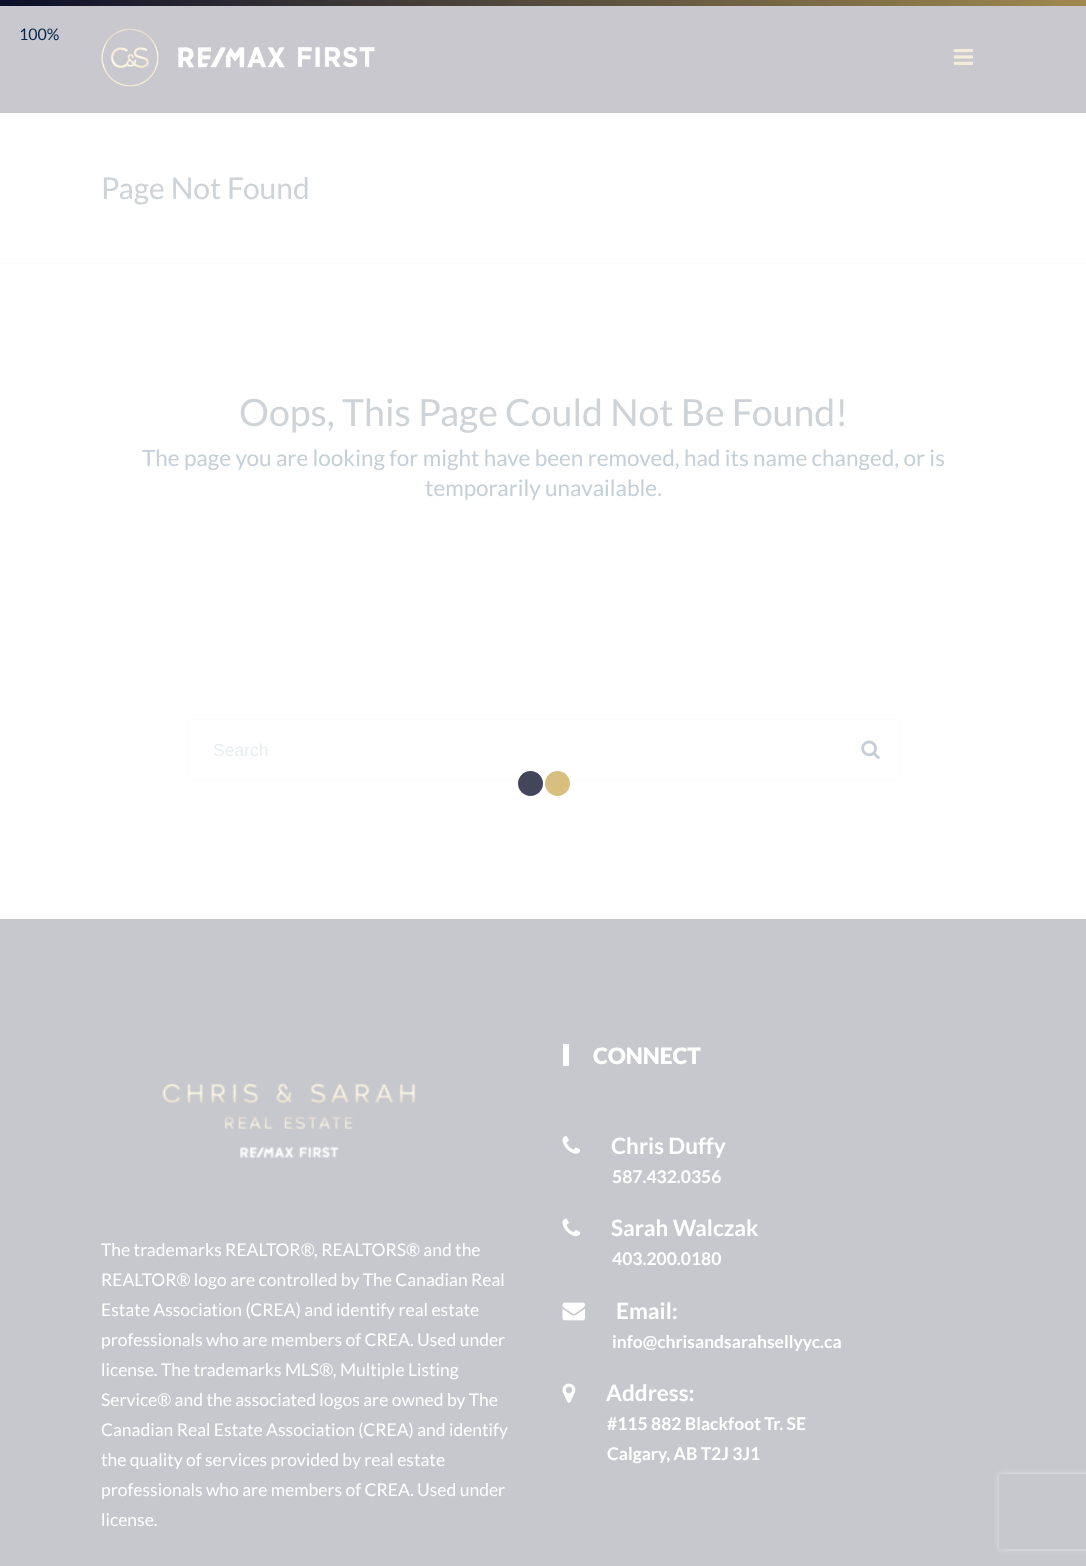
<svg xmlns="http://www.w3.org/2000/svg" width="1086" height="1566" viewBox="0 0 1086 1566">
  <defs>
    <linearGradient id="g1" gradientUnits="userSpaceOnUse" x1="0" y1="3.1" x2="1086" y2="3.1"><stop offset="0" stop-color="#0c0f2a"/><stop offset="1" stop-color="#a0894f"/></linearGradient>
    <clipPath id="clip1"><path d="M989 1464H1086V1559H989ZM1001.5 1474H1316.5C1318 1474 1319 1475 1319 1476.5V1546.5C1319 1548 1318 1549 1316.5 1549H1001.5C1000 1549 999 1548 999 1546.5V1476.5C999 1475 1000 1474 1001.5 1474Z" clip-rule="evenodd"/></clipPath>
  </defs>
  <rect width="100%" height="100%" fill="#fff"/>
  <path d="M0 0h1086v6H0z" fill="url(#g1)"/>
  <rect x="188.5" y="719.5" width="711" height="61" rx="2" fill="none" stroke="#fbfcfc"/>
  <circle cx="530.5" cy="783.5" r="12.5" fill="#0a0e29c4"/>
  <circle cx="557.5" cy="783.5" r="12.5" fill="#cbad59c4"/>
  <path d="M0 6h1086v107H0z" fill="#c9c8ce"/>
  <image x="101" y="28" width="274" height="59" href="img/1.png"/>
  <image x="953" y="48" width="21" height="17" href="img/2.png"/>
  <path d="M0 263h1086v1H0z" fill="#fbfcfc"/>
  <image x="861" y="740" width="19" height="20" href="img/3.png"/>
  <path d="M0 919h1086v647H0z" fill="#c7c8ce"/>
  <image x="162" y="1083" width="254" height="76" href="img/4.png"/>
  <path d="M563 1044h6v22H563z" fill="#fff"/>
  <image x="562" y="1136" width="19" height="18" href="img/5.png"/>
  <image x="562" y="1218" width="19" height="19" href="img/6.png"/>
  <image x="562" y="1302" width="23" height="19" href="img/7.png"/>
  <image x="562" y="1383" width="14" height="20" href="img/8.png"/>
  <g clip-path="url(#clip1)">
    <rect x="999" y="1474" width="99" height="75" rx="2.5" fill="#e2e2e2" filter="blur(3px)"/>
  </g>
  <text x="19" y="40" font-family="Lato" font-size="16" fill="#04274b">100%</text>
  <text x="101" y="199" font-family="Lato" font-size="30" fill="#ced3d7">Page Not Found</text>
  <text x="239" y="426" font-family="Lato" font-size="37.5" fill="#ced3d7">Oops, This Page Could Not Be Found!</text>
  <g font-family="Lato" font-size="22.5" fill="#c4cfd8">
    <text x="142" y="466">The page you are looking for might have been removed, had its name changed, or is</text>
    <text x="425" y="496">temporarily unavailable.</text>
  </g>
  <text x="213" y="756" font-family="Liberation Sans" font-size="17.5" fill="#e9edf0">Search</text>
  <g font-family="Lato" font-size="17.5" fill="#fff">
    <text x="101" y="1256">The trademarks REALTOR®, REALTORS® and the</text>
    <text x="101" y="1286">REALTOR® logo are controlled by The Canadian Real</text>
    <text x="101" y="1316">Estate Association (CREA) and identify real estate</text>
    <text x="101" y="1346">professionals who are members of CREA. Used under</text>
    <text x="101" y="1376">license. The trademarks MLS®, Multiple Listing</text>
    <text x="101" y="1406">Service® and the associated logos are owned by The</text>
    <text x="101" y="1436">Canadian Real Estate Association (CREA) and identify</text>
    <text x="101" y="1466">the quality of services provided by real estate</text>
    <text x="101" y="1496">professionals who are members of CREA. Used under</text>
    <text x="101" y="1526">license.</text>
  </g>
  <text x="593" y="1064" font-family="Lato" font-size="22.5" font-weight="900" fill="#fff">CONNECT</text>
  <text x="611" y="1154" font-family="Lato" font-size="22.5" font-weight="bold" fill="#fff">Chris Duffy</text>
  <text x="612" y="1183" font-family="Lato" font-size="17.5" font-weight="bold" fill="#fff">587.432.0356</text>
  <text x="611" y="1236" font-family="Lato" font-size="22.5" font-weight="bold" fill="#fff">Sarah Walczak</text>
  <text x="612" y="1265" font-family="Lato" font-size="17.5" font-weight="bold" fill="#fff">403.200.0180</text>
  <text x="616" y="1319" font-family="Lato" font-size="22.5" font-weight="bold" fill="#fff">Email:</text>
  <text x="612" y="1348" font-family="Lato" font-size="17.5" font-weight="bold" fill="#fff">info@chrisandsarahsellyyc.ca</text>
  <text x="606" y="1401" font-family="Lato" font-size="22.5" font-weight="bold" fill="#fff">Address:</text>
  <g font-family="Lato" font-size="17.5" font-weight="bold" fill="#fff">
    <text x="607" y="1430">#115 882 Blackfoot Tr. SE</text>
    <text x="607" y="1460">Calgary, AB T2J 3J1</text>
  </g>
</svg>
